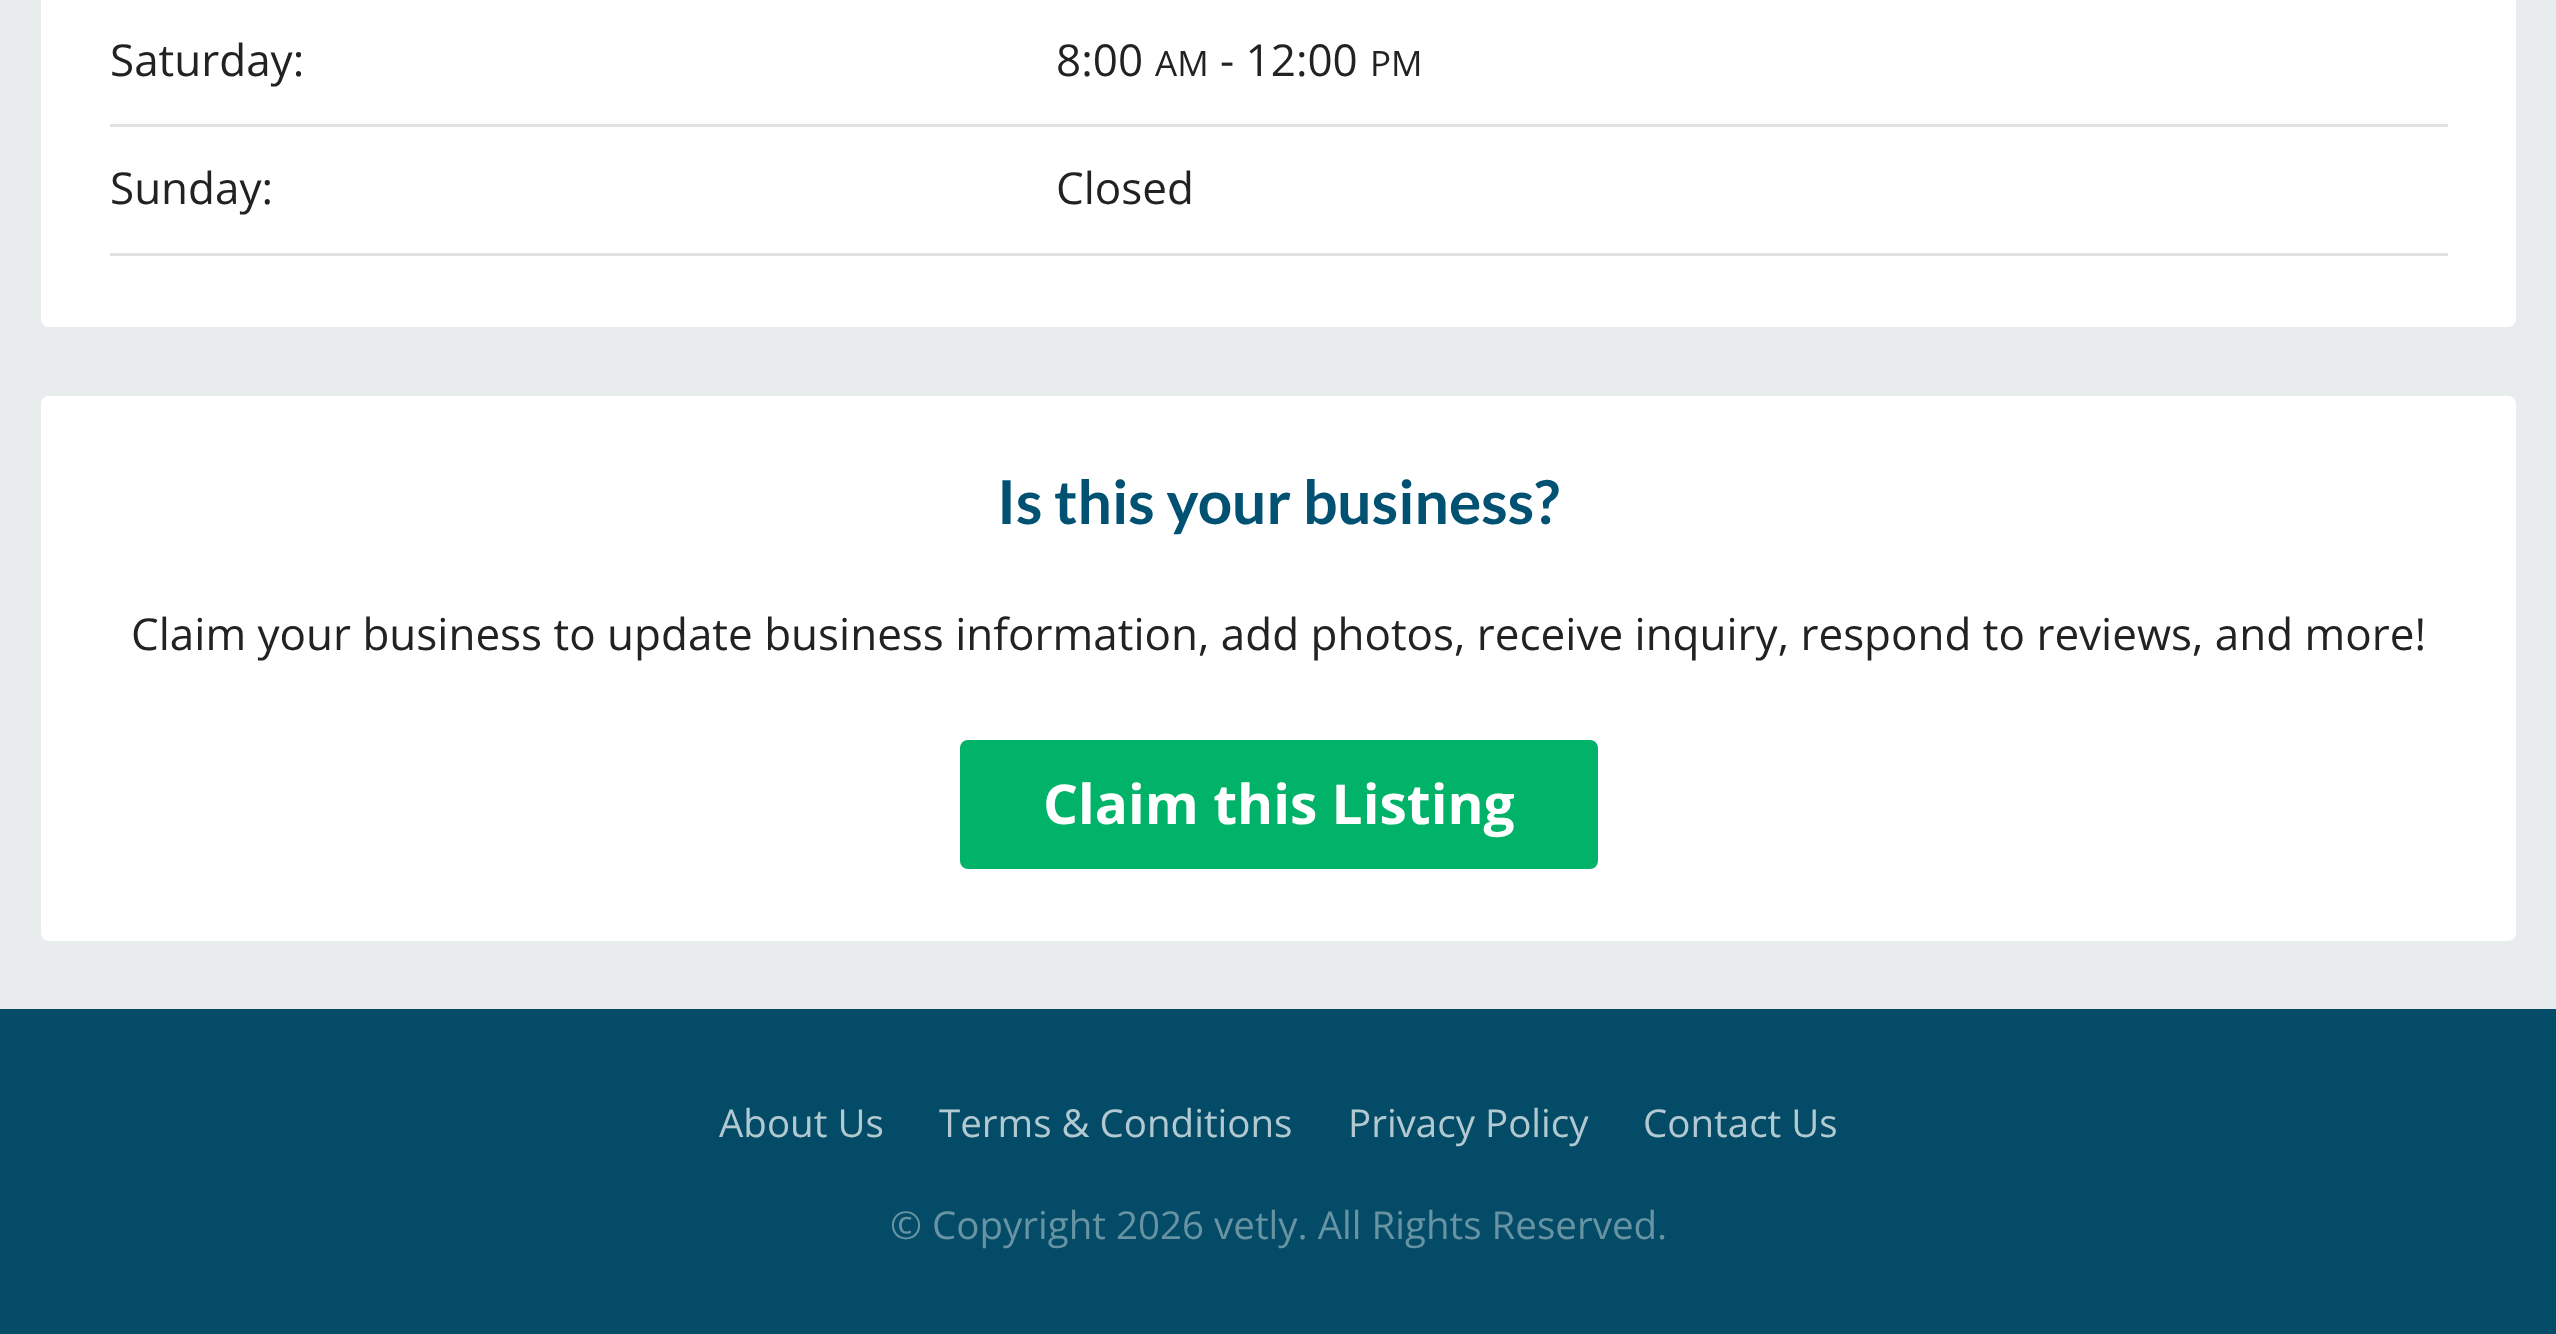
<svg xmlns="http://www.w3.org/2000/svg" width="2556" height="1334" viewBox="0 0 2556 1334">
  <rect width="100%" height="100%" fill="#e8eced"/>
  <rect x="41" y="-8" width="2475" height="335" rx="8" fill="#fff"/>
  <path d="M110 124h2338v3H110z" fill="#e1e1e1"/>
  <path d="M110 253h2338v3H110z" fill="#e1e1e1"/>
  <rect x="41" y="396" width="2475" height="545" rx="8" fill="#fff"/>
  <rect x="960" y="740" width="638" height="129" rx="8" fill="#00b368"/>
  <path d="M0 1009h2556v325H0z" fill="#034b66"/>
  <g font-family="Open Sans" font-size="44" fill="#222">
    <text x="110" y="76">Saturday:</text>
    <text x="1056" y="76">8:00</text>
  </g>
  <text x="1155" y="76" font-family="Open Sans" font-size="35" fill="#222">AM</text>
  <text x="1220" y="76" font-family="Open Sans" font-size="44" fill="#222">- 12:00</text>
  <text x="1370" y="76" font-family="Open Sans" font-size="35" fill="#222">PM</text>
  <g font-family="Open Sans" font-size="44" fill="#222">
    <text x="110" y="204">Sunday:</text>
    <text x="1056" y="204">Closed</text>
  </g>
  <text x="997" y="524" font-family="Lato" font-size="60.5" font-weight="bold" fill="#005172">Is this your business?</text>
  <text x="131" y="650" font-family="Open Sans" font-size="44" fill="#222">Claim your business to update business information, add photos, receive inquiry, respond to reviews, and more!</text>
  <text x="1043" y="824" font-family="Open Sans" font-size="55" font-weight="bold" fill="#fff">Claim this Listing</text>
  <g font-family="Open Sans" font-size="38.5" fill="#b3c9d1">
    <text x="719" y="1137">About Us</text>
    <text x="939" y="1137">Terms &amp; Conditions</text>
    <text x="1348" y="1137">Privacy Policy</text>
    <text x="1643" y="1137">Contact Us</text>
  </g>
  <text x="890" y="1239" font-family="Open Sans" font-size="38.5" fill="#6893a3">© Copyright 2026 vetly. All Rights Reserved.</text>
</svg>
